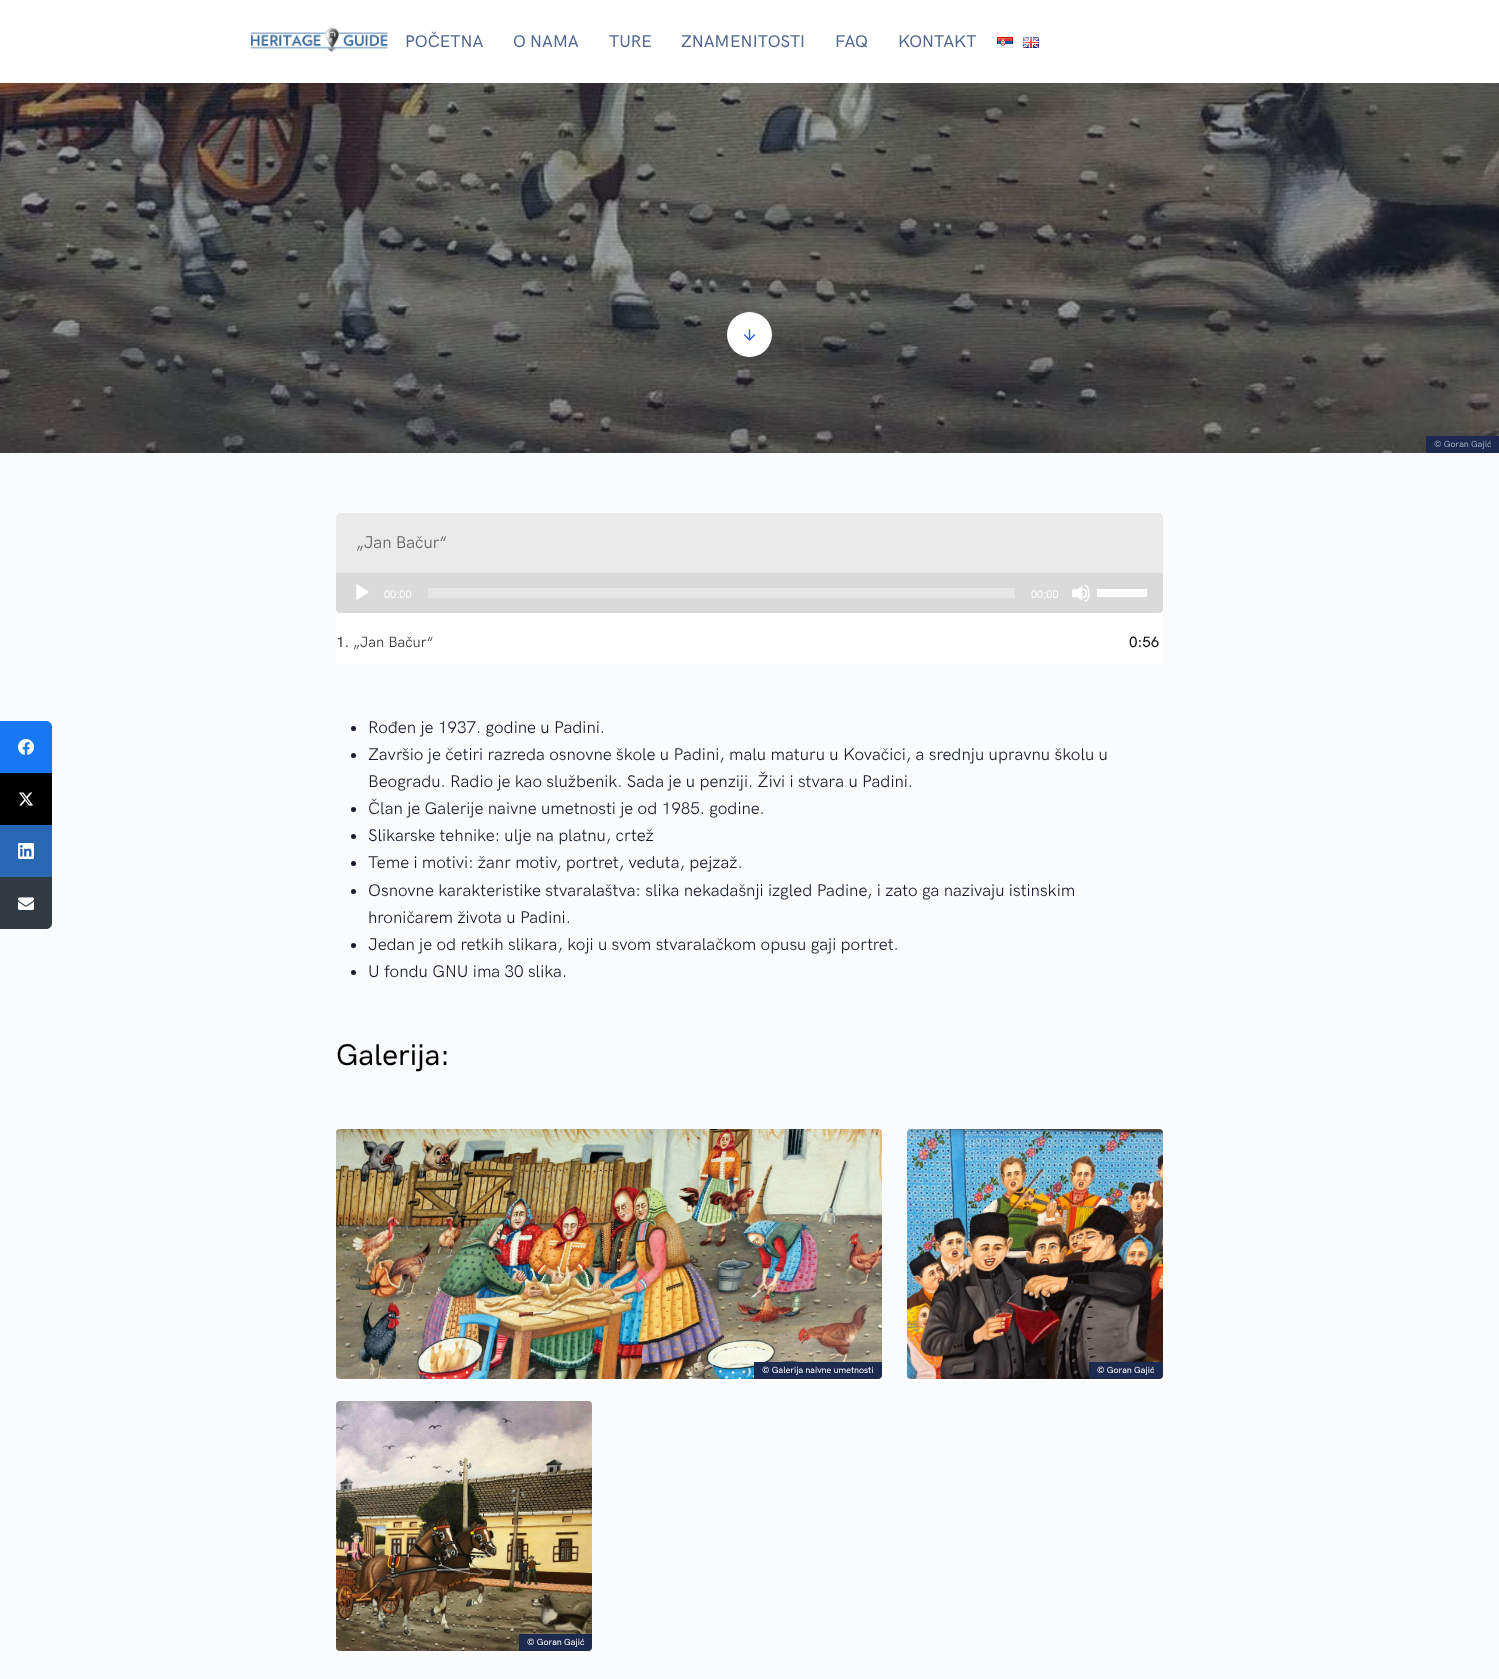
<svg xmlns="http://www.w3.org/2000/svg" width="1499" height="1679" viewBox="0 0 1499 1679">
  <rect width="100%" height="100%" fill="#f9fbfd"/>
  <path d="M0 0h1499v83H0z" fill="#fff"/>
  <image x="250" y="27" width="138" height="26" href="img/1.png"/>
  <image x="997" y="37" width="16" height="11" href="img/2.png"/>
  <image x="1023" y="37" width="16" height="11" href="img/3.png"/>
  <image x="0" y="83" width="1499" height="370" href="img/5.png"/>
  <circle cx="749.5" cy="334.5" r="22.5" fill="#fff"/>
  <image x="743" y="329" width="13" height="12" href="img/4.png"/>
  <path d="M1426 436h73v17H1426z" fill="#1b2a4e"/>
  <path d="M0 721H46C49.5 721 52 723.5 52 727V773H0Z" fill="#1877f2"/>
  <image x="18" y="739" width="16" height="16" href="img/6.png"/>
  <path d="M0 773h52v52H0z" fill="#000"/>
  <image x="19" y="792" width="15" height="14" href="img/7.png"/>
  <path d="M0 825h52v52H0z" fill="#2867b2"/>
  <image x="18" y="843" width="16" height="16" href="img/8.png"/>
  <path d="M0 877H52V923C52 926.5 49.5 929 46 929H0Z" fill="#323b43"/>
  <image x="18" y="897" width="16" height="13" href="img/9.png"/>
  <path d="M336 513h827v151H336z" fill="#fff"/>
  <path d="M340 513H1159C1161 513 1163 515 1163 517V573H336V517C336 515 338 513 340 513Z" fill="#eaeaea"/>
  <path d="M336 573H1163V609C1163 611 1161 613 1159 613H340C338 613 336 611 336 609Z" fill="#dadada"/>
  <image x="356" y="584" width="13" height="16" href="img/10.png"/>
  <path d="M428 588h587v10H428z" fill="#e6e6e6"/>
  <image x="1072" y="584" width="18" height="18" href="img/11.png"/>
  <path d="M1097 589h50v8H1097z" fill="#fff"/>
  <circle cx="353.5" cy="728.5" r="2.5" fill="#161c2d"/>
  <circle cx="353.5" cy="755.5" r="2.5" fill="#161c2d"/>
  <circle cx="353.5" cy="809.5" r="2.5" fill="#161c2d"/>
  <circle cx="353.5" cy="836.5" r="2.5" fill="#161c2d"/>
  <circle cx="353.5" cy="863.5" r="2.5" fill="#161c2d"/>
  <circle cx="353.5" cy="891.5" r="2.5" fill="#161c2d"/>
  <circle cx="353.5" cy="945.5" r="2.5" fill="#161c2d"/>
  <circle cx="353.5" cy="972.5" r="2.5" fill="#161c2d"/>
  <path d="M336 1379h546v2H336z" fill="#fff"/>
  <image x="336" y="1129" width="546" height="250" href="img/12.png"/>
  <path d="M754 1362H882V1375C882 1377 880 1379 878 1379H754Z" fill="#1b2a4e"/>
  <path d="M907 1379h256v2H907z" fill="#fff"/>
  <image x="907" y="1129" width="256" height="250" href="img/13.png"/>
  <path d="M1089 1362H1163V1375C1163 1377 1161 1379 1159 1379H1089Z" fill="#1b2a4e"/>
  <path d="M336 1651h256v2H336z" fill="#fff"/>
  <image x="336" y="1401" width="256" height="250" href="img/14.png"/>
  <path d="M519 1634H592V1647C592 1649 590 1651 588 1651H519Z" fill="#1b2a4e"/>
  <g font-family="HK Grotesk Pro" font-size="17" font-weight="500" fill="#506690">
    <text x="405" y="47">POČETNA</text>
    <text x="513" y="47">O NAMA</text>
    <text x="609" y="47">TURE</text>
    <text x="681" y="47">ZNAMENITOSTI</text>
    <text x="835" y="47">FAQ</text>
    <text x="898" y="47">KONTAKT</text>
  </g>
  <text x="1434" y="447" font-family="HK Grotesk Pro" font-size="9" font-weight="500" fill="#a4aab8">© Goran Gajić</text>
  <text x="356" y="548" font-family="HK Grotesk Pro" font-size="17" fill="#615e5e">„Jan Bačur“</text>
  <g font-family="Liberation Sans" font-size="11" fill="#fff">
    <text x="384" y="598">00:00</text>
    <text x="1031" y="598">00:00</text>
  </g>
  <text x="336" y="647" font-family="HK Grotesk Pro" font-size="15" font-weight="500" fill="#333">1.</text>
  <text x="353" y="647" font-family="HK Grotesk Pro" font-size="15" fill="#333">„Jan Bačur“</text>
  <text x="1129" y="647" font-family="HK Grotesk Pro" font-size="15" font-weight="500" fill="#000">0:56</text>
  <g font-family="HK Grotesk Pro" font-size="17" fill="#161c2d">
    <text x="368" y="733">Rođen je 1937. godine u Padini.</text>
    <text x="368" y="760">Završio je četiri razreda osnovne škole u Padini, malu maturu u Kovačici, a srednju upravnu školu u</text>
    <text x="368" y="787">Beogradu. Radio je kao službenik. Sada je u penziji. Živi i stvara u Padini.</text>
    <text x="368" y="814">Član je Galerije naivne umetnosti je od 1985. godine.</text>
    <text x="368" y="841">Slikarske tehnike: ulje na platnu, crtež</text>
    <text x="368" y="868">Teme i motivi: žanr motiv, portret, veduta, pejzaž.</text>
    <text x="368" y="896">Osnovne karakteristike stvaralaštva: slika nekadašnji izgled Padine, i zato ga nazivaju istinskim</text>
    <text x="368" y="923">hroničarem života u Padini.</text>
    <text x="368" y="950">Jedan je od retkih slikara, koji u svom stvaralačkom opusu gaji portret.</text>
    <text x="368" y="977">U fondu GNU ima 30 slika.</text>
  </g>
  <text x="336" y="1065" font-family="HK Grotesk Pro" font-size="30" font-weight="500" fill="#000">Galerija:</text>
  <g font-family="HK Grotesk Pro" font-size="9" font-weight="500" fill="#fff">
    <text x="762" y="1373">© Galerija naivne umetnosti</text>
    <text x="1097" y="1373">© Goran Gajić</text>
    <text x="527" y="1645">© Goran Gajić</text>
  </g>
</svg>
